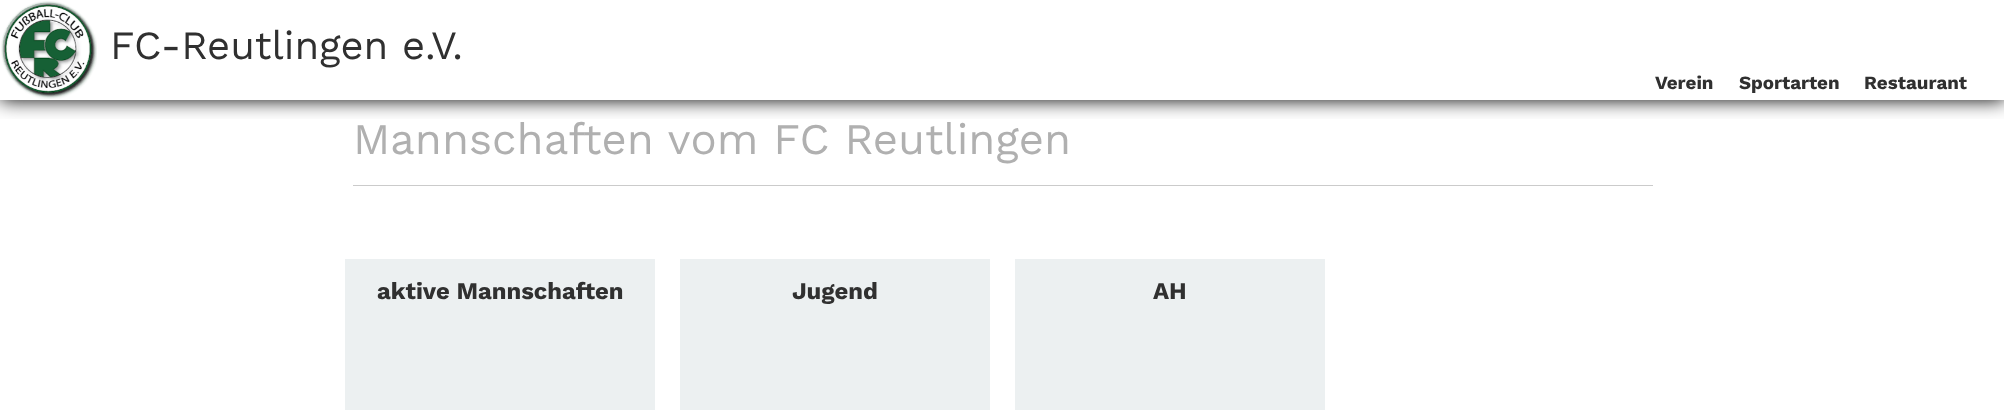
<svg xmlns="http://www.w3.org/2000/svg" width="2004" height="410" viewBox="0 0 2004 410">
  <defs>
    <clipPath id="clip1"><path d="M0 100h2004v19H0z"/></clipPath>
  </defs>
  <rect width="100%" height="100%" fill="#fff"/>
  <g clip-path="url(#clip1)">
    <path d="M0 0h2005v100H0z" fill="#000" filter="blur(9.5px)"/>
  </g>
  <image x="1" y="1" width="96" height="98" href="img/1.png"/>
  <path d="M353 185h1300v1H353z" fill="#cbcbcb"/>
  <path d="M345 259h310v151H345z" fill="#ecf0f1"/>
  <path d="M680 259h310v151H680z" fill="#ecf0f1"/>
  <path d="M1015 259h310v151H1015z" fill="#ecf0f1"/>
  <text x="110" y="59" font-family="Work Sans" font-size="40" fill="#303030">FC-Reutlingen e.V.</text>
  <g font-family="Work Sans" font-size="18.75" font-weight="bold" fill="#303030">
    <text x="1655" y="89">Verein</text>
    <text x="1739" y="89">Sportarten</text>
    <text x="1864" y="89">Restaurant</text>
  </g>
  <text x="353" y="154" font-family="Work Sans" font-size="43.75" fill="#b0b0b0">Mannschaften vom FC Reutlingen</text>
  <g font-family="Work Sans" font-size="23.75" font-weight="bold" fill="#303030">
    <text x="377" y="299">aktive Mannschaften</text>
    <text x="792" y="299">Jugend</text>
    <text x="1153" y="299">AH</text>
  </g>
</svg>
